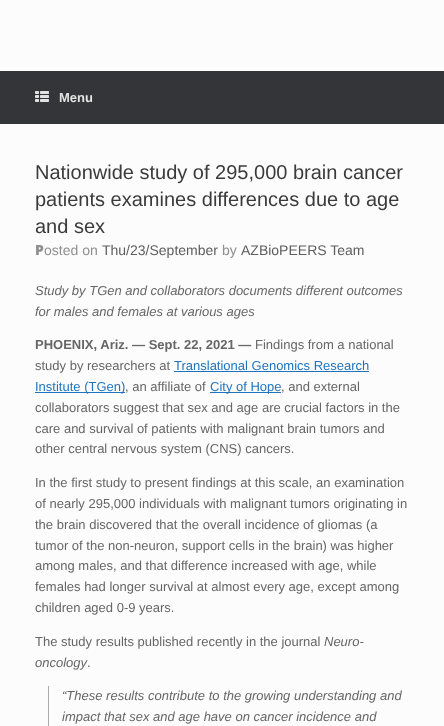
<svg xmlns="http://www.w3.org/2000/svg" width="444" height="726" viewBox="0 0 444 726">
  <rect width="100%" height="100%" fill="#fcfcfc"/>
  <path d="M0 71h444v53H0z" fill="#343538"/>
  <image x="35" y="91" width="14" height="11" href="img/1.png"/>
  <path d="M174 371h195v1H174z" fill="#1e73be"/>
  <path d="M35 392h90v1H35z" fill="#1e73be"/>
  <path d="M210 392h71v1H210z" fill="#1e73be"/>
  <path d="M48 686h1v40H48z" fill="#aaa"/>
  <text x="59" y="102" font-family="Liberation Sans" font-size="13" font-weight="bold" fill="#e2e2e2">Menu</text>
  <g font-family="Liberation Sans" font-size="20" fill="#3b3b3b">
    <text x="35" y="179">Nationwide study of 295,000 brain cancer</text>
    <text x="35" y="206">patients examines differences due to age</text>
    <text x="35" y="233">and sex</text>
  </g>
  <text x="35" y="255" font-family="Noto Sans" font-size="14" font-weight="900" fill="#8f8f8f">P</text>
  <text x="44" y="255" font-family="Liberation Sans" font-size="14" fill="#8f8f8f">osted on</text>
  <text x="102" y="255" font-family="Liberation Sans" font-size="14" fill="#5e5e5e">Thu/23/September</text>
  <text x="222" y="255" font-family="Liberation Sans" font-size="14" fill="#8f8f8f">by</text>
  <text x="241" y="255" font-family="Liberation Sans" font-size="14" fill="#5e5e5e">AZBioPEERS Team</text>
  <g font-family="Liberation Sans" font-size="13" font-style="italic" fill="#666">
    <text x="35" y="295">Study by TGen and collaborators documents different outcomes</text>
    <text x="35" y="316">for males and females at various ages</text>
  </g>
  <text x="35" y="349" font-family="Liberation Sans" font-size="13" font-weight="bold" fill="#666">PHOENIX, Ariz. — Sept. 22, 2021 —</text>
  <g font-family="Liberation Sans" font-size="13" fill="#666">
    <text x="255" y="349">Findings from a national</text>
    <text x="35" y="370">study by researchers at</text>
  </g>
  <g font-family="Liberation Sans" font-size="13" fill="#1e73be">
    <text x="174" y="370">Translational Genomics Research</text>
    <text x="35" y="391">Institute (TGen)</text>
  </g>
  <text x="125" y="391" font-family="Liberation Sans" font-size="13" fill="#666">, an affiliate of</text>
  <text x="210" y="391" font-family="Liberation Sans" font-size="13" fill="#1e73be">City of Hope</text>
  <g font-family="Liberation Sans" font-size="13" fill="#666">
    <text x="281" y="391">, and external</text>
    <text x="35" y="412">collaborators suggest that sex and age are crucial factors in the</text>
    <text x="35" y="433">care and survival of patients with malignant brain tumors and</text>
    <text x="35" y="453">other central nervous system (CNS) cancers.</text>
    <text x="35" y="487">In the first study to present findings at this scale, an examination</text>
    <text x="35" y="508">of nearly 295,000 individuals with malignant tumors originating in</text>
    <text x="35" y="529">the brain discovered that the overall incidence of gliomas (a</text>
    <text x="35" y="550">tumor of the non-neuron, support cells in the brain) was higher</text>
    <text x="35" y="570">among males, and that difference increased with age, while</text>
    <text x="35" y="591">females had longer survival at almost every age, except among</text>
    <text x="35" y="612">children aged 0-9 years.</text>
    <text x="35" y="646">The study results published recently in the journal</text>
  </g>
  <g font-family="Liberation Sans" font-size="13" font-style="italic" fill="#666">
    <text x="324" y="646">Neuro-</text>
    <text x="35" y="667">oncology</text>
  </g>
  <text x="87" y="667" font-family="Liberation Sans" font-size="13" fill="#666">.</text>
  <g font-family="Liberation Sans" font-size="13" font-style="italic" fill="#666">
    <text x="62" y="700">“These results contribute to the growing understanding and</text>
    <text x="62" y="721">impact that sex and age have on cancer incidence and</text>
  </g>
</svg>
